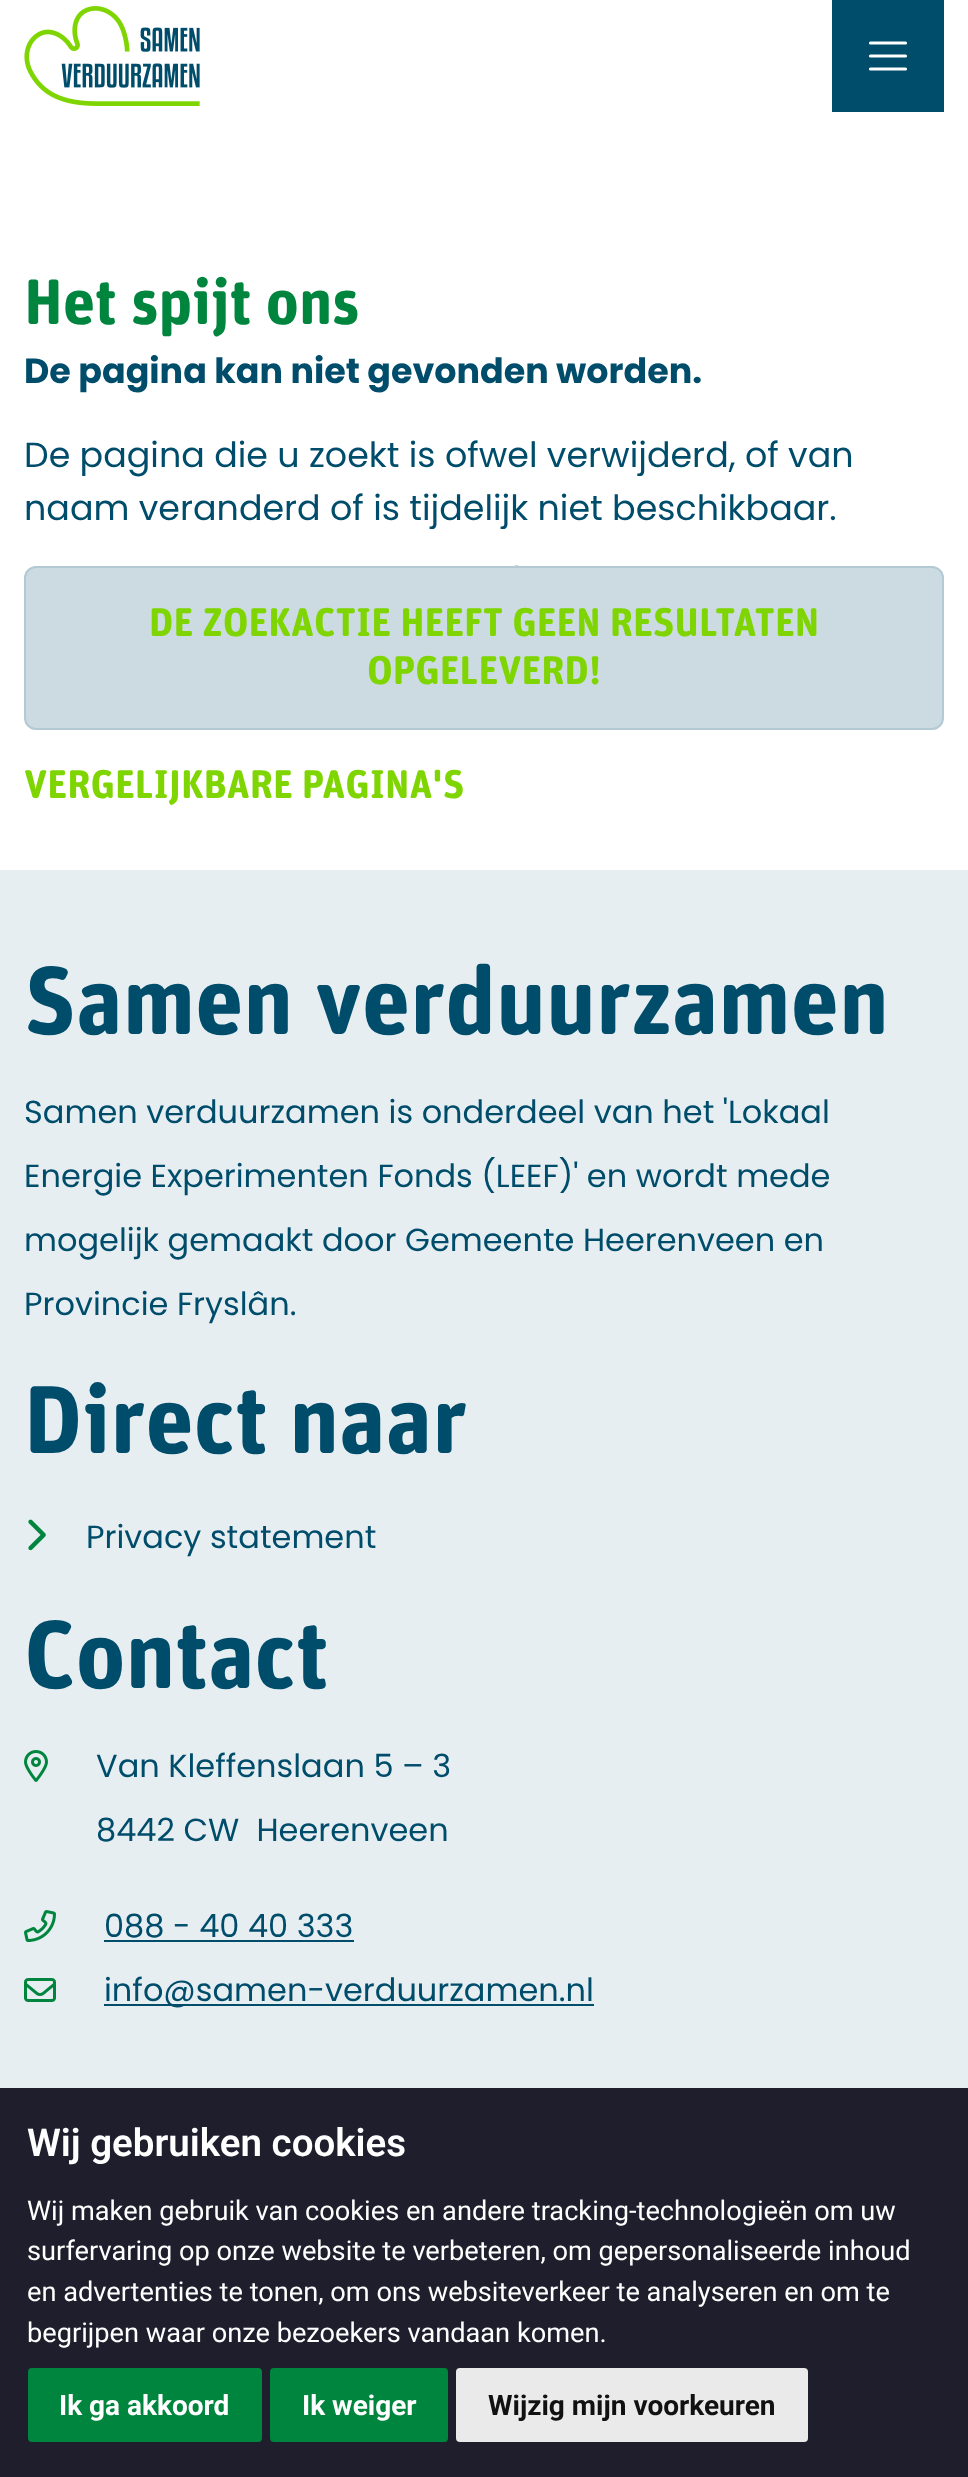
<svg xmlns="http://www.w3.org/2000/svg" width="968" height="2477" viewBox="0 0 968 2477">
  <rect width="100%" height="100%" fill="#fff"/>
  <image x="24" y="6" width="176" height="100" href="img/1.png"/>
  <path d="M832 0h112v112H832z" fill="#004c6b"/>
  <path d="M870.5 43H905.5M870.5 56H905.5M870.5 69H905.5" fill="none" stroke="#fff" stroke-width="3.2" stroke-linecap="round"/>
  <path d="M536 618C530.5 623 523.5 626 516 626C482.5 626 478 577 510.5 570.5C519.5 568.5 529 571.5 536 578" fill="none" stroke="#004c6b" stroke-width="8"/>
  <rect x="25" y="567" width="918" height="162" rx="11" fill="#ccdbe1" stroke="#b3c9d3" stroke-width="2"/>
  <path d="M0 870h968v1218H0z" fill="#e6eef1"/>
  <image x="28" y="1519" width="18" height="32" href="img/2.png"/>
  <image x="24" y="1750" width="24" height="32" href="img/3.png"/>
  <image x="24" y="1910" width="32" height="32" href="img/4.png"/>
  <path d="M104 1940h250v2H104z" fill="#004c6b"/>
  <image x="24" y="1978" width="32" height="24" href="img/5.png"/>
  <path d="M104 2004h490v2H104z" fill="#004c6b"/>
  <path d="M0 2088h968v389H0z" fill="#1e1e2d"/>
  <rect x="28" y="2368" width="234" height="74" rx="4" fill="#00853e"/>
  <rect x="270" y="2368" width="178" height="74" rx="4" fill="#00853e"/>
  <rect x="456" y="2368" width="352" height="74" rx="4" fill="#eaeaea"/>
  <text x="24" y="324" font-family="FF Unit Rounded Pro" font-size="64" font-weight="bold" fill="#00853e">Het spijt ons</text>
  <text x="24" y="383" font-family="Poppins" font-size="34.9" font-weight="bold" fill="#004c6b">De pagina kan niet gevonden worden.</text>
  <g font-family="Poppins" font-size="34.9" fill="#004c6b">
    <text x="24" y="467">De pagina die u zoekt is ofwel verwijderd, of van</text>
    <text x="24" y="520">naam veranderd of is tijdelijk niet beschikbaar.</text>
  </g>
  <g font-family="FF Unit Rounded Pro" font-size="40" font-weight="bold" fill="#7fd501">
    <text x="149" y="636">DE ZOEKACTIE HEEFT GEEN RESULTATEN</text>
    <text x="367" y="684">OPGELEVERD!</text>
    <text x="24" y="798">VERGELIJKBARE PAGINA'S</text>
  </g>
  <text x="24" y="1034" font-family="FF Unit Rounded Pro" font-size="96" font-weight="bold" fill="#004c6b">Samen verduurzamen</text>
  <g font-family="Poppins" font-size="32" fill="#004c6b">
    <text x="24" y="1123">Samen verduurzamen is onderdeel van het 'Lokaal</text>
    <text x="24" y="1187">Energie Experimenten Fonds (LEEF)' en wordt mede</text>
    <text x="24" y="1251">mogelijk gemaakt door Gemeente Heerenveen en</text>
    <text x="24" y="1315">Provincie Fryslân.</text>
  </g>
  <text x="24" y="1453" font-family="FF Unit Rounded Pro" font-size="96" font-weight="bold" fill="#004c6b">Direct naar</text>
  <text x="86" y="1548" font-family="Poppins" font-size="32" fill="#004c6b">Privacy statement</text>
  <text x="24" y="1688" font-family="FF Unit Rounded Pro" font-size="96" font-weight="bold" fill="#004c6b">Contact</text>
  <g font-family="Poppins" font-size="32" fill="#004c6b">
    <text x="96" y="1777">Van Kleffenslaan 5 – 3</text>
    <text x="96" y="1841" xml:space="preserve">8442 CW  Heerenveen</text>
    <text x="104" y="1937">088 - 40 40 333</text>
    <text x="104" y="2001">info@samen-verduurzamen.nl</text>
  </g>
  <text x="27" y="2156" font-family="Roboto" font-size="38.5" font-weight="600" fill="#fff">Wij gebruiken cookies</text>
  <g font-family="Roboto" font-size="27.2" fill="#fff">
    <text x="27" y="2220">Wij maken gebruik van cookies en andere tracking-technologieën om uw</text>
    <text x="27" y="2260">surfervaring op onze website te verbeteren, om gepersonaliseerde inhoud</text>
    <text x="27" y="2301">en advertenties te tonen, om ons websiteverkeer te analyseren en om te</text>
    <text x="27" y="2342">begrijpen waar onze bezoekers vandaan komen.</text>
  </g>
  <g font-family="Roboto" font-size="28" font-weight="bold" fill="#fff">
    <text x="59" y="2415">Ik ga akkoord</text>
    <text x="302" y="2415">Ik weiger</text>
  </g>
  <text x="488" y="2415" font-family="Roboto" font-size="28" font-weight="bold" fill="#111">Wijzig mijn voorkeuren</text>
</svg>
